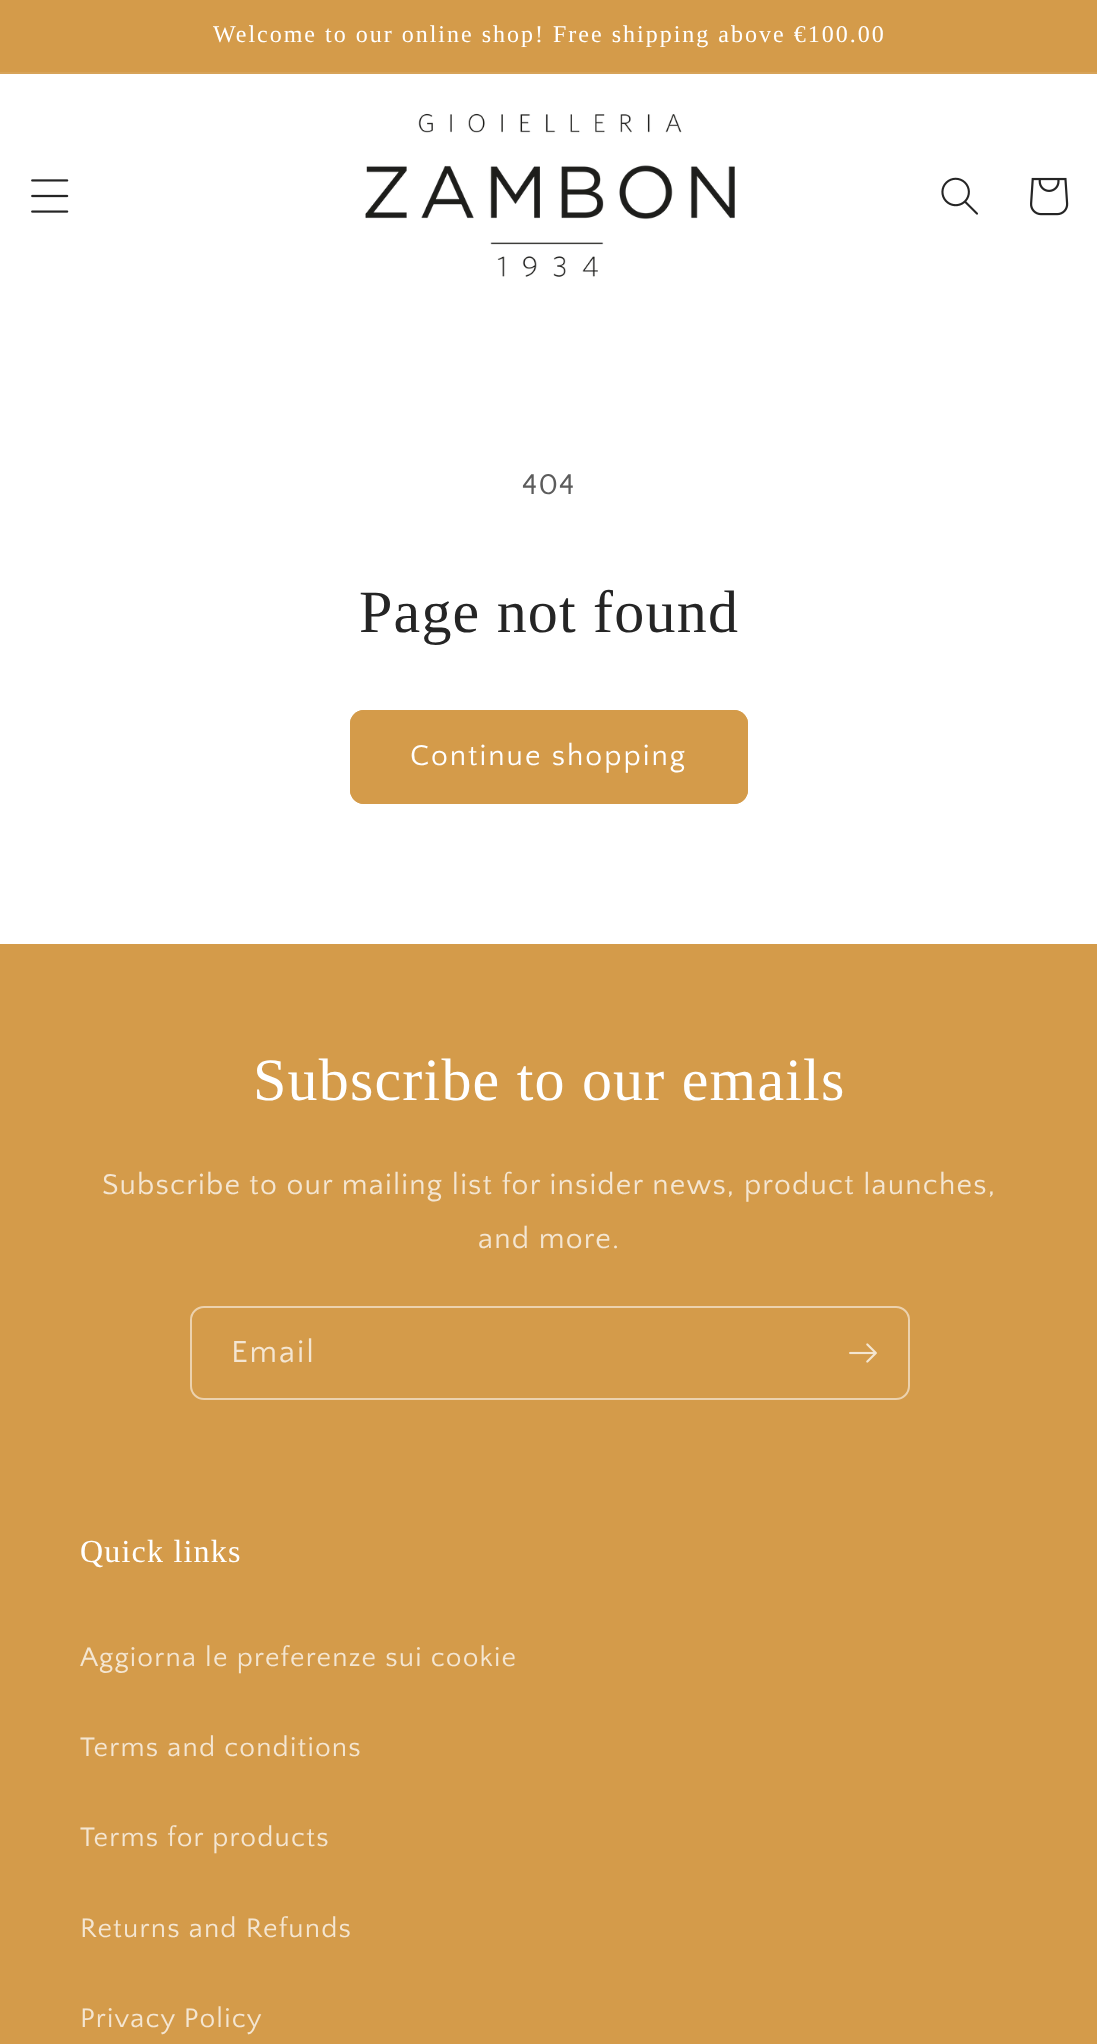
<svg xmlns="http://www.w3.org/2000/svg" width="1097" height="2044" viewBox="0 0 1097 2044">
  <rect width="100%" height="100%" fill="#fff"/>
  <path d="M0 0h1097v72H0z" fill="#d49b4a"/>
  <path d="M0 72h1097v2H0z" fill="#d7a358"/>
  <image x="31" y="179" width="38" height="34" href="img/1.png"/>
  <image x="365" y="113" width="370" height="164" href="img/2.png"/>
  <image x="941" y="177" width="37" height="38" href="img/3.png"/>
  <image x="1030" y="177" width="39" height="39" href="img/4.png"/>
  <rect x="350" y="710" width="398" height="94" rx="14" fill="#d49b4a"/>
  <rect x="351" y="711" width="396" height="92" rx="13" fill="none" stroke="#d49b4a" stroke-width="2"/>
  <path d="M0 944h1097v1100H0z" fill="#d49b4a"/>
  <rect x="191" y="1307" width="718" height="92" rx="13" fill="none" stroke="#ecd2ae" stroke-width="2"/>
  <image x="849" y="1343" width="28" height="20" href="img/5.png"/>
  <text x="213" y="42" font-family="Liberation Serif" font-size="24" letter-spacing="2" fill="#fff">Welcome to our online shop! Free shipping above €100.00</text>
  <text x="522" y="494" font-family="Quattrocento Sans" font-size="30" letter-spacing="1.2" fill="#5c5c5c">404</text>
  <text x="359" y="632" font-family="Liberation Serif" font-size="60" letter-spacing="1.2" fill="#252525">Page not found</text>
  <text x="410" y="765" font-family="Quattrocento Sans" font-size="30" letter-spacing="2" fill="#fff">Continue shopping</text>
  <text x="253" y="1100" font-family="Liberation Serif" font-size="60" letter-spacing="1.2" fill="#fff">Subscribe to our emails</text>
  <g font-family="Quattrocento Sans" font-size="30" letter-spacing="1.2" fill="#f4e6d2">
    <text x="102" y="1194">Subscribe to our mailing list for insider news, product launches,</text>
    <text x="478" y="1248">and more.</text>
  </g>
  <text x="231" y="1362" font-family="Quattrocento Sans" font-size="32" letter-spacing="2" fill="#f4e6d2">Email</text>
  <text x="80" y="1562" font-family="Liberation Serif" font-size="32" letter-spacing="1.2" fill="#fff">Quick links</text>
  <g font-family="Quattrocento Sans" font-size="28" letter-spacing="1.2" fill="#f4e6d2">
    <text x="80" y="1666">Aggiorna le preferenze sui cookie</text>
    <text x="80" y="1756">Terms and conditions</text>
    <text x="80" y="1846">Terms for products</text>
    <text x="80" y="1937">Returns and Refunds</text>
    <text x="80" y="2027">Privacy Policy</text>
  </g>
</svg>
